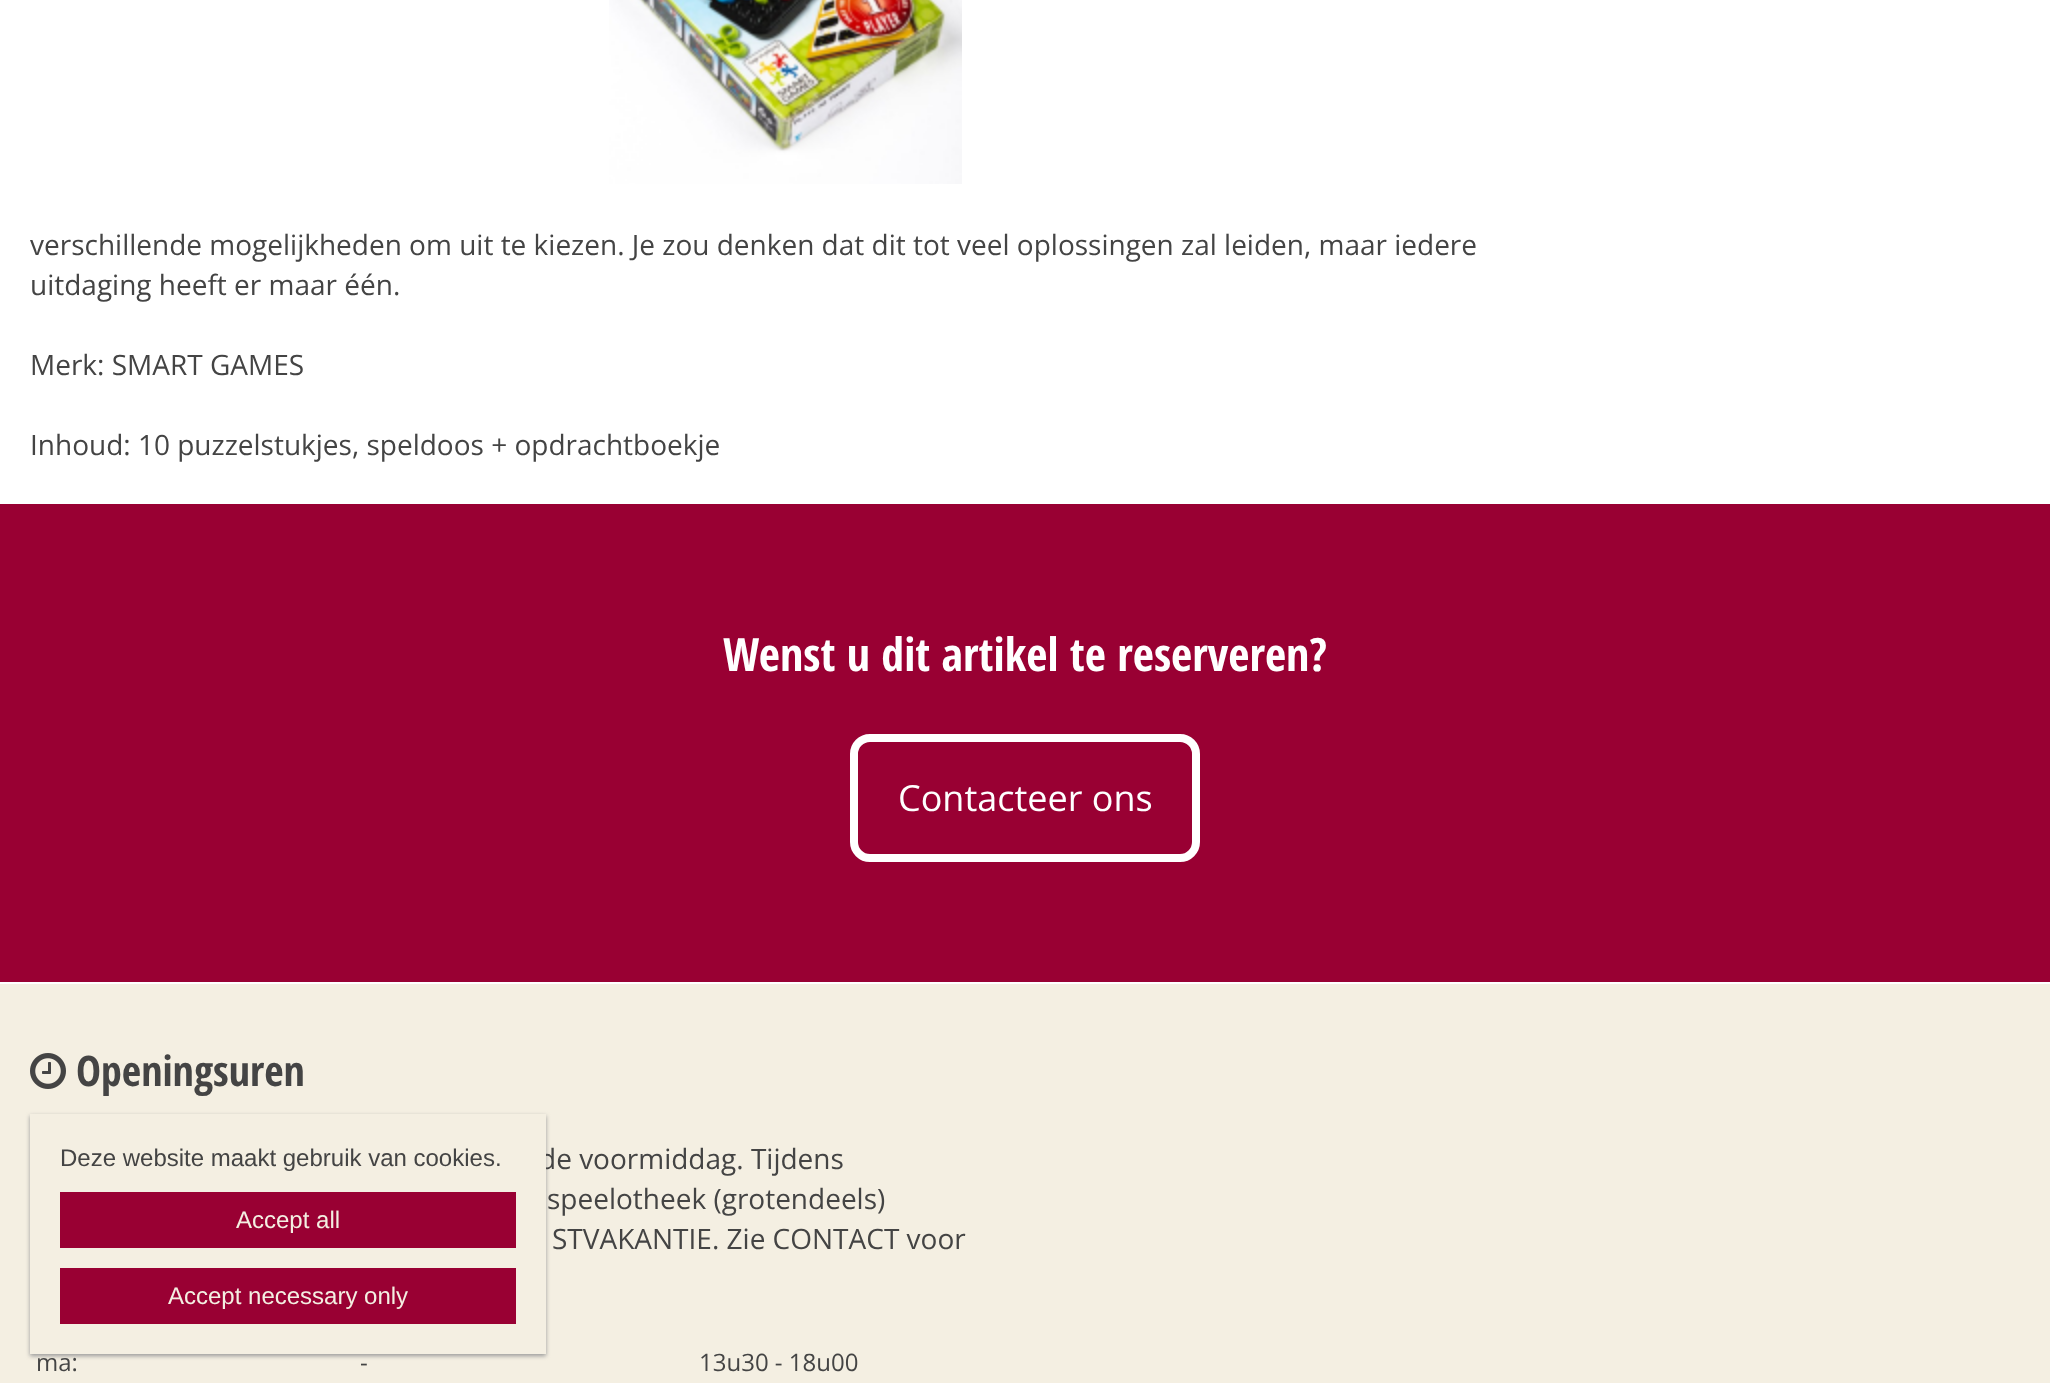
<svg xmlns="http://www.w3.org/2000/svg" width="2050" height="1383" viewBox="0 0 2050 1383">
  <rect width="100%" height="100%" fill="#fff"/>
  <image x="609" y="0" width="353" height="184" href="img/1.png"/>
  <path d="M0 504h2050v478H0z" fill="#903"/>
  <rect x="854" y="738" width="342" height="120" rx="16" fill="none" stroke="#fff" stroke-width="8"/>
  <path d="M0 984h2050v399H0z" fill="#f4efe2"/>
  <image x="30" y="1053" width="36" height="36" href="img/2.png"/>
  <path d="M30 1116h516v240H30z" fill="#999" filter="blur(2px)"/>
  <g font-family="Open Sans" font-size="28" fill="#444">
    <text x="30" y="255">verschillende mogelijkheden om uit te kiezen. Je zou denken dat dit tot veel oplossingen zal leiden, maar iedere</text>
    <text x="30" y="295">uitdaging heeft er maar één.</text>
    <text x="30" y="375">Merk: SMART GAMES</text>
    <text x="30" y="455">Inhoud: 10 puzzelstukjes, speldoos + opdrachtboekje</text>
  </g>
  <text x="723" y="671" font-family="Open Sans Condensed" font-size="46" font-weight="bold" fill="#fff">Wenst u dit artikel te reserveren?</text>
  <text x="898" y="811" font-family="Open Sans" font-size="36" fill="#fff">Contacteer ons</text>
  <text x="76" y="1086" font-family="Open Sans Condensed" font-size="42" font-weight="bold" fill="#444">Openingsuren</text>
  <g font-family="Open Sans" font-size="28" fill="#444">
    <text x="539" y="1169">de voormiddag. Tijdens</text>
    <text x="547" y="1209">speelotheek (grotendeels)</text>
    <text x="552" y="1249">STVAKANTIE. Zie CONTACT voor</text>
  </g>
  <g font-family="Open Sans" font-size="24" fill="#444">
    <text x="36" y="1371">ma:</text>
    <text x="360" y="1371">-</text>
    <text x="699" y="1371">13u30 - 18u00</text>
  </g>
  <path d="M30 1114h516v240H30z" fill="#f4efe2"/>
  <text x="60" y="1166" font-family="Liberation Sans" font-size="24" fill="#444">Deze website maakt gebruik van cookies.</text>
  <path d="M60 1192h456v56H60z" fill="#903"/>
  <text x="236" y="1228" font-family="Liberation Sans" font-size="24" fill="#f4efe2">Accept all</text>
  <path d="M60 1268h456v56H60z" fill="#903"/>
  <text x="168" y="1304" font-family="Liberation Sans" font-size="24" fill="#f4efe2">Accept necessary only</text>
</svg>
